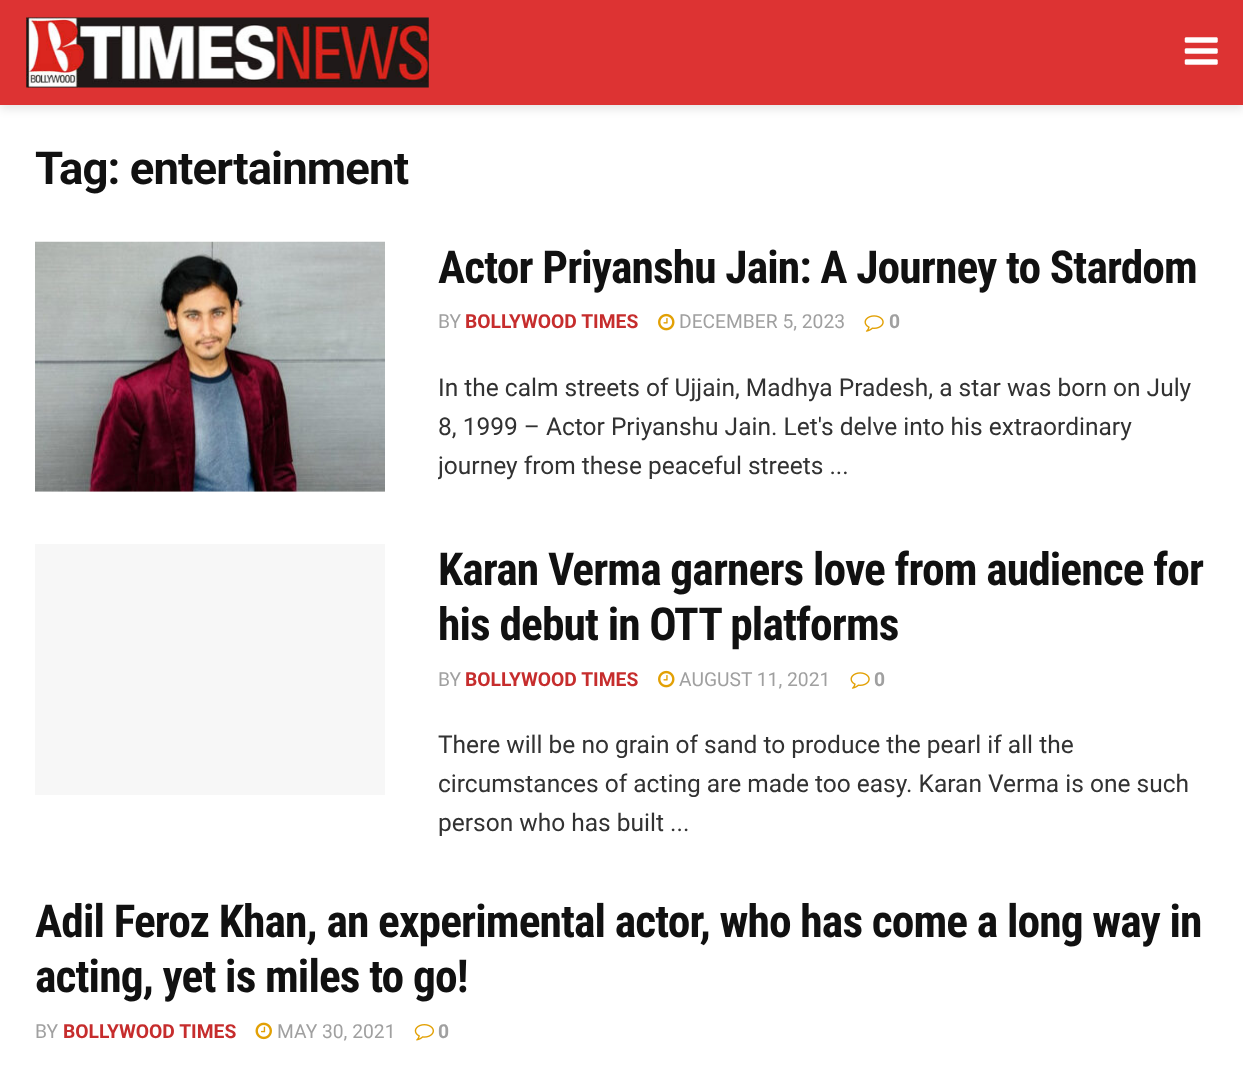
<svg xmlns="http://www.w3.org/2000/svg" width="1243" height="1077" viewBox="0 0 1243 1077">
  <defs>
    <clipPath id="clip1"><path d="M438 242h771v243H438z"/></clipPath>
  </defs>
  <rect width="100%" height="100%" fill="#fff"/>
  <path d="M0 4h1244v105H0z" fill="#0000001a" filter="blur(5px)"/>
  <path d="M0 0h1243v105H0z" fill="#d33"/>
  <image x="26" y="17" width="403" height="71" href="img/1.png"/>
  <image x="1184" y="37" width="34" height="28" href="img/2.png"/>
  <path d="M35 491h350v1H35z" fill="#f7f7f7"/>
  <image x="35" y="241" width="350" height="251" href="img/3.png"/>
  <image x="658" y="313" width="17" height="18" href="img/4.png"/>
  <image x="864" y="315" width="20" height="17" href="img/5.png"/>
  <path d="M35 544h350v251H35z" fill="#f7f7f7"/>
  <image x="658" y="670" width="17" height="18" href="img/4.png"/>
  <image x="850" y="672" width="20" height="17" href="img/5.png"/>
  <image x="255" y="1022" width="17" height="18" href="img/6.png"/>
  <image x="414" y="1024" width="20" height="17" href="img/7.png"/>
  <text x="35" y="184" font-family="Roboto" font-size="45.5" font-weight="bold" letter-spacing="-0.9" fill="#111">Tag: entertainment</text>
  <text x="438" y="283" font-family="Roboto Condensed" font-size="45.5" font-weight="bold" letter-spacing="-0.9" fill="#111">Actor Priyanshu Jain: A Journey to Stardom</text>
  <text x="438" y="328" font-family="Roboto" font-size="19.25" fill="#a0a0a0">BY</text>
  <text x="465" y="328" font-family="Roboto" font-size="19.25" font-weight="bold" fill="#c62d2d">BOLLYWOOD TIMES</text>
  <text x="679" y="328" font-family="Roboto" font-size="19.25" fill="#a0a0a0">DECEMBER 5, 2023</text>
  <text x="889" y="328" font-family="Roboto" font-size="19.25" font-weight="bold" fill="#a0a0a0">0</text>
  <g font-family="Roboto" font-size="24.5" fill="#323232">
    <text x="438" y="396">In the calm streets of Ujjain, Madhya Pradesh, a star was born on July</text>
    <text x="438" y="435">8, 1999 – Actor Priyanshu Jain. Let's delve into his extraordinary</text>
  </g>
  <g clip-path="url(#clip1)">
    <text x="438" y="474" font-family="Roboto" font-size="24.5" fill="#323232">journey from these peaceful streets ...</text>
  </g>
  <g font-family="Roboto Condensed" font-size="45.5" font-weight="bold" letter-spacing="-0.9" fill="#111">
    <text x="438" y="585">Karan Verma garners love from audience for</text>
    <text x="438" y="640">his debut in OTT platforms</text>
  </g>
  <text x="438" y="686" font-family="Roboto" font-size="19.25" fill="#a0a0a0">BY</text>
  <text x="465" y="686" font-family="Roboto" font-size="19.25" font-weight="bold" fill="#c62d2d">BOLLYWOOD TIMES</text>
  <text x="679" y="686" font-family="Roboto" font-size="19.25" fill="#a0a0a0">AUGUST 11, 2021</text>
  <text x="874" y="686" font-family="Roboto" font-size="19.25" font-weight="bold" fill="#a0a0a0">0</text>
  <g font-family="Roboto" font-size="24.5" fill="#323232">
    <text x="438" y="753">There will be no grain of sand to produce the pearl if all the</text>
    <text x="438" y="792">circumstances of acting are made too easy. Karan Verma is one such</text>
    <text x="438" y="831">person who has built ...</text>
  </g>
  <g font-family="Roboto Condensed" font-size="45.5" font-weight="bold" letter-spacing="-0.9" fill="#111">
    <text x="35" y="937">Adil Feroz Khan, an experimental actor, who has come a long way in</text>
    <text x="35" y="992">acting, yet is miles to go!</text>
  </g>
  <text x="35" y="1038" font-family="Roboto" font-size="19.25" fill="#a0a0a0">BY</text>
  <text x="63" y="1038" font-family="Roboto" font-size="19.25" font-weight="bold" fill="#c62d2d">BOLLYWOOD TIMES</text>
  <text x="277" y="1038" font-family="Roboto" font-size="19.25" fill="#a0a0a0">MAY 30, 2021</text>
  <text x="438" y="1038" font-family="Roboto" font-size="19.25" font-weight="bold" fill="#a0a0a0">0</text>
</svg>
